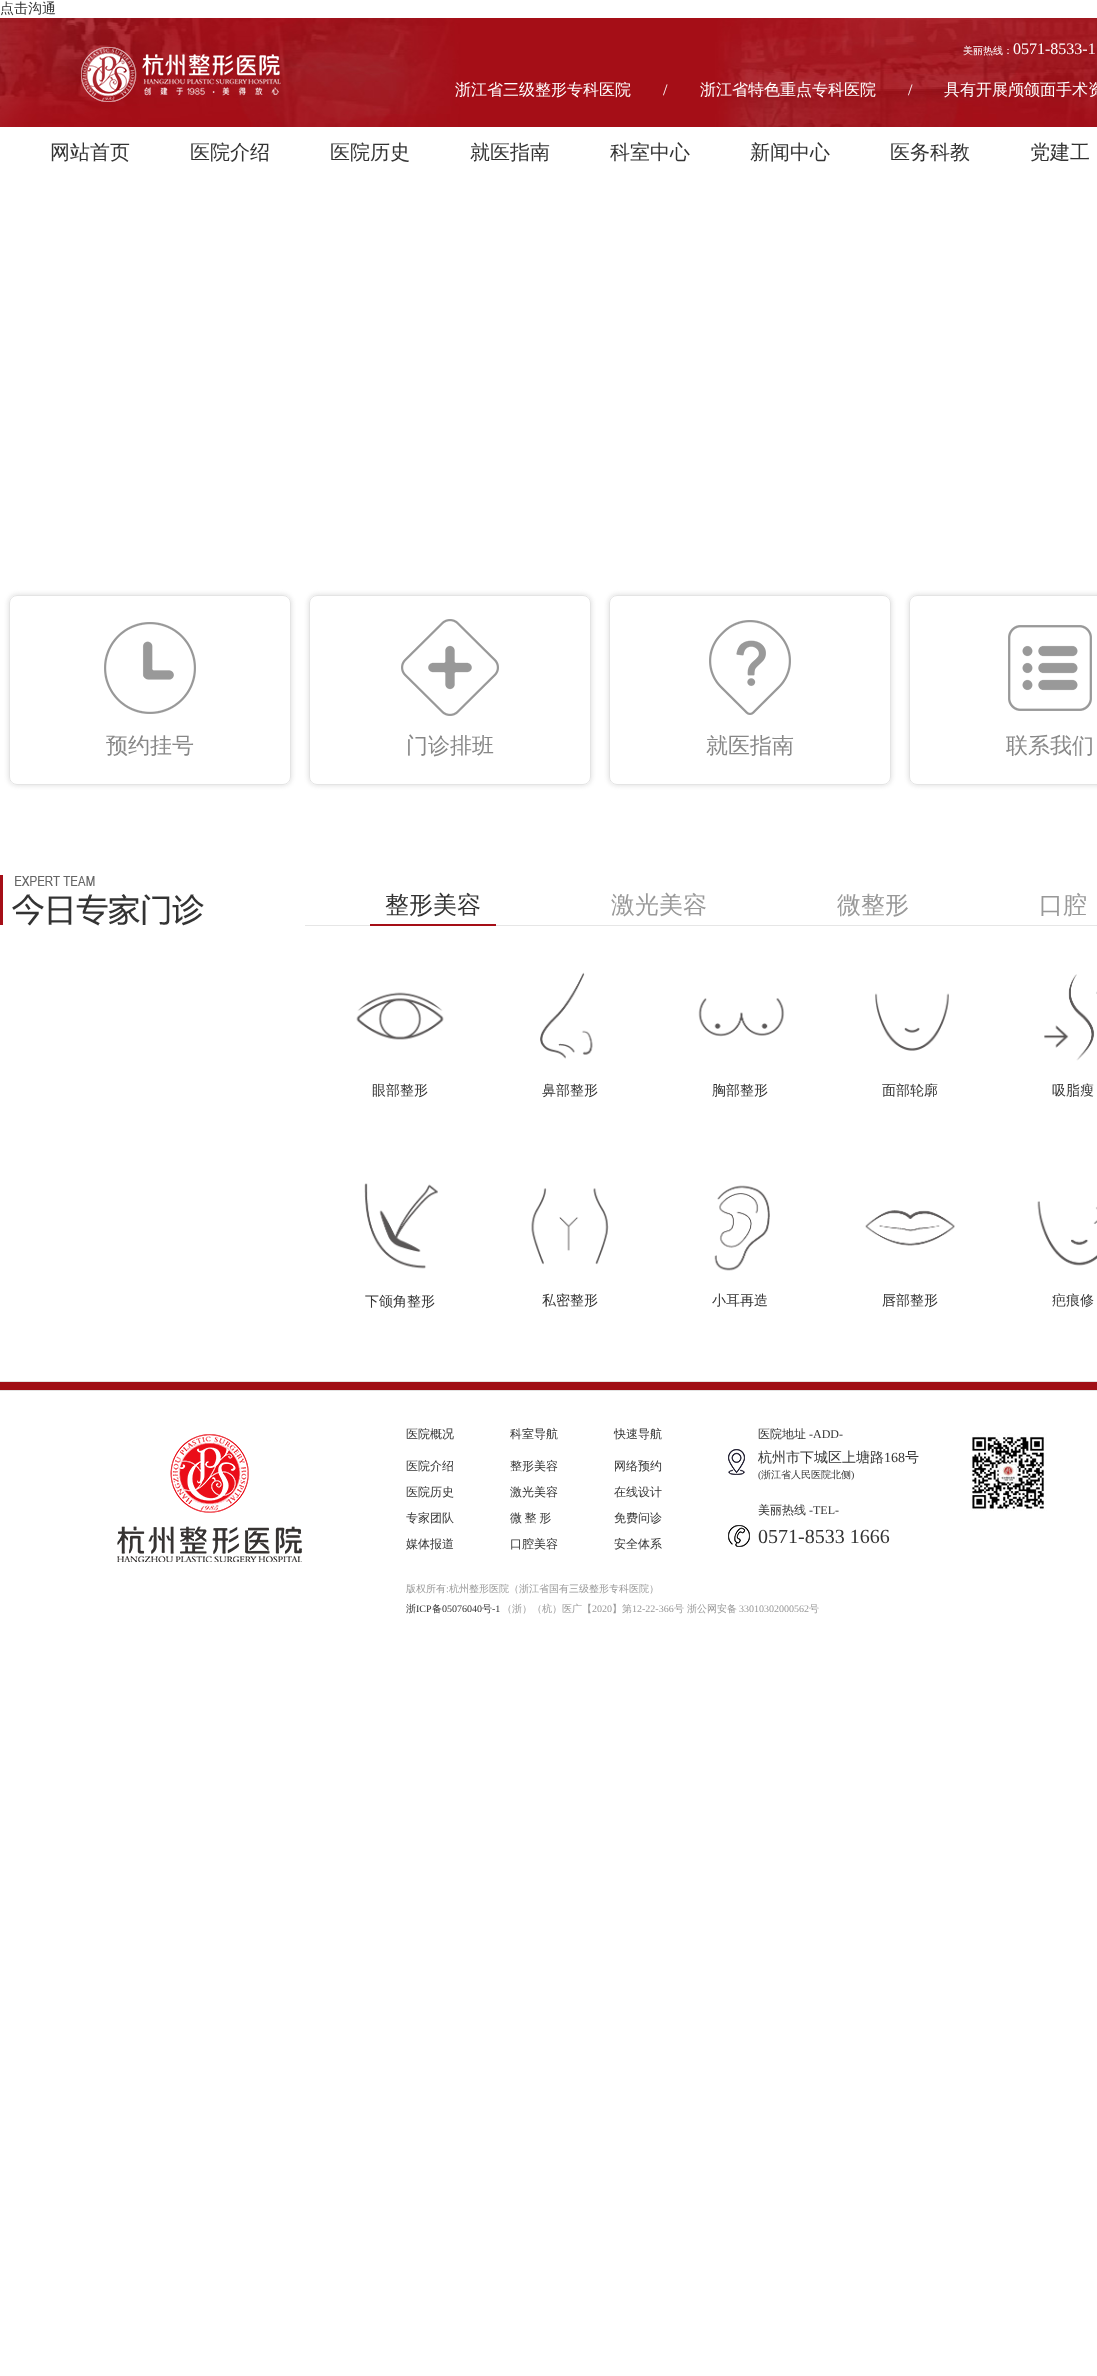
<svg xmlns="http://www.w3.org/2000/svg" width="1097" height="2376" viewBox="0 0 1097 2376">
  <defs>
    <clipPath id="clip1"><path d="M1 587H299V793H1ZM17 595H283C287.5 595 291 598.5 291 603V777C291 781.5 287.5 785 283 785H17C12.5 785 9 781.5 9 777V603C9 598.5 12.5 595 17 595Z" clip-rule="evenodd"/></clipPath>
    <clipPath id="clip2"><path d="M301 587H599V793H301ZM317 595H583C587.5 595 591 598.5 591 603V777C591 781.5 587.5 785 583 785H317C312.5 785 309 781.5 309 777V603C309 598.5 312.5 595 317 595Z" clip-rule="evenodd"/></clipPath>
    <clipPath id="clip3"><path d="M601 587H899V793H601ZM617 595H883C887.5 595 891 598.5 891 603V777C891 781.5 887.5 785 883 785H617C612.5 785 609 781.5 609 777V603C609 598.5 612.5 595 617 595Z" clip-rule="evenodd"/></clipPath>
    <clipPath id="clip4"><path d="M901 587H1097V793H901ZM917 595H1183C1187.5 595 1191 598.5 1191 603V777C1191 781.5 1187.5 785 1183 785H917C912.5 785 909 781.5 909 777V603C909 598.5 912.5 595 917 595Z" clip-rule="evenodd"/></clipPath>
  </defs>
  <rect width="100%" height="100%" fill="#fff"/>
  <image x="0" y="18" width="1097" height="109" href="img/1.png"/>
  <image x="81" y="47" width="200" height="55" href="img/2.png"/>
  <g clip-path="url(#clip1)">
    <rect x="8" y="594" width="284" height="192" rx="9" fill="#e4e4e4" filter="blur(2px)"/>
  </g>
  <image x="104" y="622" width="92" height="92" href="img/3.png"/>
  <rect x="9.5" y="595.5" width="281" height="189" rx="7.5" fill="none" stroke="#e4e4e4"/>
  <g clip-path="url(#clip2)">
    <rect x="308" y="594" width="284" height="192" rx="9" fill="#e4e4e4" filter="blur(2px)"/>
  </g>
  <image x="401" y="619" width="98" height="97" href="img/4.png"/>
  <rect x="309.5" y="595.5" width="281" height="189" rx="7.5" fill="none" stroke="#e4e4e4"/>
  <g clip-path="url(#clip3)">
    <rect x="608" y="594" width="284" height="192" rx="9" fill="#e4e4e4" filter="blur(2px)"/>
  </g>
  <image x="709" y="620" width="82" height="95" href="img/5.png"/>
  <rect x="609.5" y="595.5" width="281" height="189" rx="7.5" fill="none" stroke="#e4e4e4"/>
  <g clip-path="url(#clip4)">
    <rect x="908" y="594" width="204" height="192" rx="9" fill="#e4e4e4" filter="blur(2px)"/>
  </g>
  <image x="1008" y="625" width="84" height="86" href="img/6.png"/>
  <rect x="909.5" y="595.5" width="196" height="189" rx="7.5" fill="none" stroke="#e4e4e4"/>
  <image x="0" y="875" width="204" height="51" href="img/7.png"/>
  <path d="M305 925h792v1H305z" fill="#e6e6e6"/>
  <path d="M370 924h126v2H370z" fill="#a50e17"/>
  <image x="356" y="992" width="88" height="48" href="img/8.png"/>
  <image x="540" y="972" width="53" height="87" href="img/9.png"/>
  <image x="698" y="998" width="87" height="39" href="img/10.png"/>
  <image x="875" y="993" width="74" height="58" href="img/11.png"/>
  <image x="1044" y="974" width="53" height="87" href="img/12.png"/>
  <image x="364" y="1183" width="74" height="86" href="img/13.png"/>
  <image x="531" y="1188" width="78" height="77" href="img/14.png"/>
  <image x="714" y="1185" width="56" height="86" href="img/15.png"/>
  <image x="865" y="1210" width="90" height="36" href="img/16.png"/>
  <image x="1037" y="1201" width="60" height="65" href="img/17.png"/>
  <path d="M0 1382h1097v8H0z" fill="#a00f15"/>
  <path d="M0 1381h1097v1H0z" fill="#e3e3e3"/>
  <path d="M0 1390h1097v1H0z" fill="#e3e3e3"/>
  <image x="117" y="1434" width="185" height="128" href="img/18.png"/>
  <image x="728" y="1449" width="17" height="26" href="img/19.png"/>
  <image x="728" y="1525" width="22" height="22" href="img/20.png"/>
  <image x="971" y="1433" width="76" height="78" href="img/21.png"/>
  <text x="0" y="13" font-family="WenQuanYi Zen Hei" font-size="14" font-weight="500" fill="#333">点击沟通</text>
  <text x="963" y="54" font-family="WenQuanYi Zen Hei" font-size="10" font-weight="500" fill="#fff">美丽热线：</text>
  <text x="1013" y="54" font-family="Liberation Serif" font-size="16" fill="#fff">0571-8533-1</text>
  <text x="455" y="95" font-family="WenQuanYi Zen Hei" font-size="16" font-weight="500" fill="#fff">浙江省三级整形专科医院</text>
  <text x="663" y="95" font-family="Liberation Serif" font-size="16" fill="#fff">/</text>
  <text x="700" y="95" font-family="WenQuanYi Zen Hei" font-size="16" font-weight="500" fill="#fff">浙江省特色重点专科医院</text>
  <text x="908" y="95" font-family="Liberation Serif" font-size="16" fill="#fff">/</text>
  <text x="944" y="95" font-family="WenQuanYi Zen Hei" font-size="16" font-weight="500" fill="#fff">具有开展颅颌面手术资</text>
  <g font-family="WenQuanYi Zen Hei" font-size="20" font-weight="500" fill="#333">
    <text x="50" y="159">网站首页</text>
    <text x="190" y="159">医院介绍</text>
    <text x="330" y="159">医院历史</text>
    <text x="470" y="159">就医指南</text>
    <text x="610" y="159">科室中心</text>
    <text x="750" y="159">新闻中心</text>
    <text x="890" y="159">医务科教</text>
    <text x="1030" y="159">党建工</text>
  </g>
  <g font-family="WenQuanYi Zen Hei" font-size="22" font-weight="500" fill="#888">
    <text x="106" y="753">预约挂号</text>
    <text x="406" y="753">门诊排班</text>
    <text x="706" y="753">就医指南</text>
    <text x="1006" y="753">联系我们</text>
  </g>
  <text x="385" y="913" font-family="WenQuanYi Zen Hei" font-size="24" font-weight="500" fill="#333">整形美容</text>
  <g font-family="WenQuanYi Zen Hei" font-size="24" font-weight="500" fill="#999">
    <text x="611" y="913">激光美容</text>
    <text x="837" y="913">微整形</text>
    <text x="1039" y="913">口腔</text>
  </g>
  <g font-family="WenQuanYi Zen Hei" font-size="14" font-weight="500" fill="#333">
    <text x="372" y="1095">眼部整形</text>
    <text x="542" y="1095">鼻部整形</text>
    <text x="712" y="1095">胸部整形</text>
    <text x="882" y="1095">面部轮廓</text>
    <text x="1052" y="1095">吸脂瘦</text>
    <text x="365" y="1306">下颌角整形</text>
    <text x="542" y="1305">私密整形</text>
    <text x="712" y="1305">小耳再造</text>
    <text x="882" y="1305">唇部整形</text>
    <text x="1052" y="1305">疤痕修</text>
  </g>
  <g font-family="WenQuanYi Zen Hei" font-size="12" font-weight="500" fill="#333">
    <text x="406" y="1438">医院概况</text>
    <text x="406" y="1470">医院介绍</text>
    <text x="406" y="1496">医院历史</text>
    <text x="406" y="1522">专家团队</text>
    <text x="406" y="1548">媒体报道</text>
    <text x="510" y="1438">科室导航</text>
    <text x="510" y="1470">整形美容</text>
    <text x="510" y="1496">激光美容</text>
    <text x="510" y="1522" word-spacing="-1">微 整 形</text>
    <text x="510" y="1548">口腔美容</text>
    <text x="614" y="1438">快速导航</text>
    <text x="614" y="1470">网络预约</text>
    <text x="614" y="1496">在线设计</text>
    <text x="614" y="1522">免费问诊</text>
    <text x="614" y="1548">安全体系</text>
    <text x="758" y="1438">医院地址</text>
  </g>
  <text x="809" y="1438" font-family="Liberation Serif" font-size="12" fill="#333">-ADD-</text>
  <text x="758" y="1462" font-family="WenQuanYi Zen Hei" font-size="14" font-weight="500" fill="#333">杭州市下城区上塘路</text>
  <text x="884" y="1462" font-family="Liberation Serif" font-size="14" fill="#333">168</text>
  <text x="905" y="1462" font-family="WenQuanYi Zen Hei" font-size="14" font-weight="500" fill="#333">号</text>
  <text x="758" y="1478" font-family="Liberation Serif" font-size="10" fill="#333">(</text>
  <text x="761" y="1478" font-family="WenQuanYi Zen Hei" font-size="10" font-weight="500" fill="#333">浙江省人民医院北侧</text>
  <text x="851" y="1478" font-family="Liberation Serif" font-size="10" fill="#333">)</text>
  <text x="758" y="1514" font-family="WenQuanYi Zen Hei" font-size="12" font-weight="500" fill="#333">美丽热线</text>
  <text x="809" y="1514" font-family="Liberation Serif" font-size="12" fill="#333">-TEL-</text>
  <text x="758" y="1543" font-family="Liberation Serif" font-size="20" fill="#333">0571-8533 1666</text>
  <text x="406" y="1592" font-family="WenQuanYi Zen Hei" font-size="10" font-weight="500" fill="#999">版权所有 杭州整形医院（浙江省国有三级整形专科医院）</text>
  <text x="446" y="1592" font-family="Liberation Serif" font-size="10" fill="#999">:</text>
  <text x="406" y="1612" font-family="WenQuanYi Zen Hei" font-size="10" font-weight="500" fill="#333">浙</text>
  <text x="416" y="1612" font-family="Liberation Serif" font-size="10" fill="#333">ICP</text>
  <text x="432" y="1612" font-family="WenQuanYi Zen Hei" font-size="10" font-weight="500" fill="#333">备</text>
  <text x="442" y="1612" font-family="Liberation Serif" font-size="10" fill="#333">05076040</text>
  <text x="482" y="1612" font-family="WenQuanYi Zen Hei" font-size="10" font-weight="500" fill="#333">号</text>
  <text x="492" y="1612" font-family="Liberation Serif" font-size="10" fill="#333">-1</text>
  <text x="502" y="1612" font-family="WenQuanYi Zen Hei" font-size="10" font-weight="500" fill="#999">（浙）（杭）医广【</text>
  <text x="592" y="1612" font-family="Liberation Serif" font-size="10" fill="#999">2020</text>
  <text x="612" y="1612" font-family="WenQuanYi Zen Hei" font-size="10" font-weight="500" fill="#999">】第</text>
  <text x="632" y="1612" font-family="Liberation Serif" font-size="10" fill="#999">12-22-366</text>
  <text x="674" y="1612" font-family="WenQuanYi Zen Hei" font-size="10" font-weight="500" fill="#999">号 浙公网安备</text>
  <text x="739" y="1612" font-family="Liberation Serif" font-size="10" fill="#999">33010302000562</text>
  <text x="809" y="1612" font-family="WenQuanYi Zen Hei" font-size="10" font-weight="500" fill="#999">号</text>
</svg>
